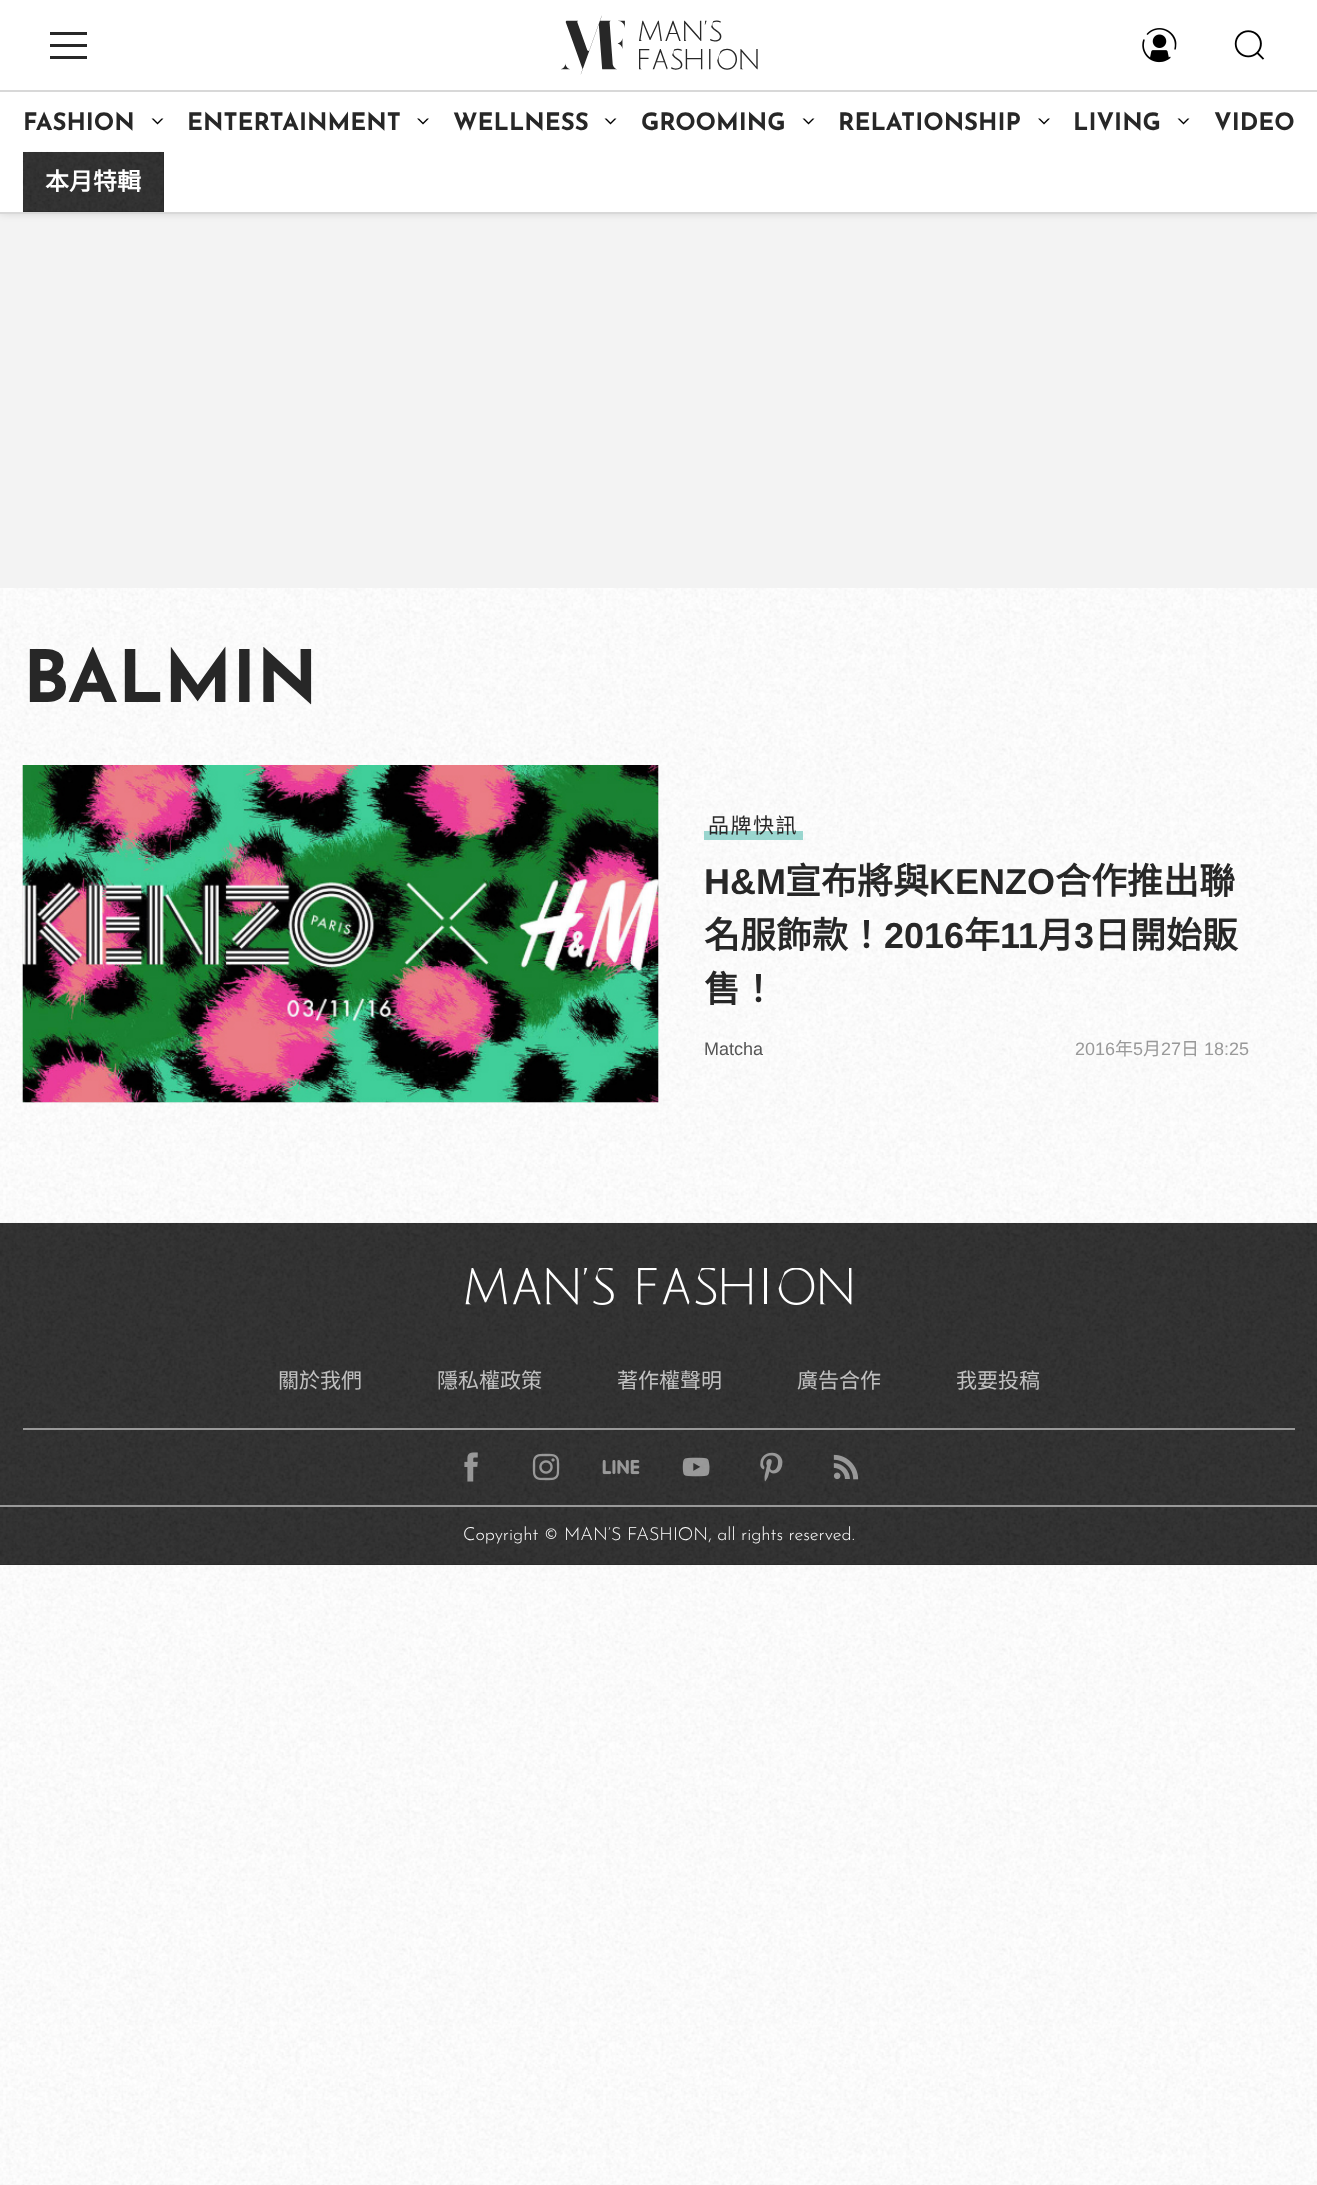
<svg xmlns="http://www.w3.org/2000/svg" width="1317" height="2185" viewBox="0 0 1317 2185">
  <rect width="100%" height="100%" fill="#fff"/>
  <image x="0" y="588" width="1317" height="1597" href="img/1.png"/>
  <path d="M0 214h1317v374H0z" fill="#f3f3f3"/>
  <path d="M0 0h1317v213H0z" fill="#00000026" filter="blur(4px)"/>
  <path d="M0 0h1317v212H0z" fill="#fff"/>
  <path d="M50 32h37v3H50z" fill="#272727"/>
  <path d="M50 44h37v3H50z" fill="#272727"/>
  <path d="M50 56h37v3H50z" fill="#272727"/>
  <image x="561" y="15" width="197" height="60" href="img/2.png"/>
  <image x="1142" y="28" width="35" height="35" href="img/3.png"/>
  <image x="1234" y="30" width="31" height="30" href="img/4.png"/>
  <path d="M0 90h1317v2H0z" fill="#d8d8d8"/>
  <path d="M0 212h1317v2H0z" fill="#d8d8d8"/>
  <image x="151" y="118" width="13" height="7" href="img/5.png"/>
  <image x="417" y="118" width="12" height="7" href="img/6.png"/>
  <image x="604" y="118" width="13" height="7" href="img/5.png"/>
  <image x="802" y="118" width="13" height="7" href="img/5.png"/>
  <image x="1038" y="118" width="12" height="7" href="img/6.png"/>
  <image x="1177" y="118" width="13" height="7" href="img/5.png"/>
  <path d="M23 152h141v60H23z" fill="#272727"/>
  <image x="22" y="151" width="142" height="61" href="img/7.png"/>
  <image x="22" y="765" width="637" height="338" href="img/8.png"/>
  <image x="22" y="765" width="637" height="338" href="img/9.png"/>
  <path d="M704 831h99v9H704z" fill="#71c6bcb3"/>
  <path d="M0 1223h1317v342H0z" fill="#272727"/>
  <image x="0" y="1222" width="1317" height="343" href="img/10.png"/>
  <image x="465" y="1268" width="387" height="37" href="img/11.png"/>
  <path d="M23 1428h1272v2H23z" fill="#999"/>
  <image x="464" y="1452" width="14" height="30" href="img/12.png"/>
  <image x="532" y="1453" width="28" height="28" href="img/13.png"/>
  <image x="602" y="1459" width="38" height="16" href="img/14.png"/>
  <image x="682" y="1457" width="28" height="20" href="img/15.png"/>
  <image x="760" y="1452" width="23" height="30" href="img/16.png"/>
  <image x="833" y="1454" width="26" height="26" href="img/17.png"/>
  <path d="M0 1505h1317v2H0z" fill="#999"/>
  <g font-family="Josefin Sans" font-size="24" font-weight="bold" fill="#272727">
    <text x="23" y="130">FASHION</text>
    <text x="187" y="130">ENTERTAINMENT</text>
    <text x="453" y="130">WELLNESS</text>
    <text x="641" y="130">GROOMING</text>
    <text x="838" y="130">RELATIONSHIP</text>
    <text x="1073" y="130">LIVING</text>
    <text x="1214" y="130">VIDEO</text>
  </g>
  <text x="45" y="190" font-family="Noto Sans CJK TC" font-size="24" font-weight="bold" fill="#fff">本月特輯</text>
  <text x="23" y="702" font-family="Josefin Sans" font-size="72" font-weight="bold" fill="#272727">BALMIN</text>
  <text x="708" y="833" font-family="Noto Sans CJK TC" font-size="21" letter-spacing="1.5" fill="#272727">品牌快訊</text>
  <text x="704" y="894" font-family="Liberation Sans" font-size="36" font-weight="bold" fill="#272727">H&amp;M</text>
  <text x="785" y="894" font-family="Noto Sans CJK TC" font-size="36" font-weight="bold" fill="#272727">宣布將與</text>
  <text x="929" y="894" font-family="Liberation Sans" font-size="36" font-weight="bold" fill="#272727">KENZO</text>
  <g font-family="Noto Sans CJK TC" font-size="36" font-weight="bold" fill="#272727">
    <text x="1055" y="894">合作推出聯</text>
    <text x="704" y="948">名服飾款！</text>
  </g>
  <text x="884" y="948" font-family="Liberation Sans" font-size="36" font-weight="bold" fill="#272727">2016</text>
  <text x="964" y="948" font-family="Noto Sans CJK TC" font-size="36" font-weight="bold" fill="#272727">年</text>
  <text x="1000" y="948" font-family="Liberation Sans" font-size="36" font-weight="bold" fill="#272727">11</text>
  <text x="1038" y="948" font-family="Noto Sans CJK TC" font-size="36" font-weight="bold" fill="#272727">月</text>
  <text x="1074" y="948" font-family="Liberation Sans" font-size="36" font-weight="bold" fill="#272727">3</text>
  <g font-family="Noto Sans CJK TC" font-size="36" font-weight="bold" fill="#272727">
    <text x="1094" y="948">日開始販</text>
    <text x="704" y="1002">售！</text>
  </g>
  <text x="704" y="1055" font-family="Liberation Sans" font-size="18" fill="#555">Matcha</text>
  <text x="1075" y="1055" font-family="Liberation Sans" font-size="18" fill="#999">2016</text>
  <text x="1115" y="1055" font-family="Noto Sans CJK TC" font-size="18" fill="#999">年</text>
  <text x="1133" y="1055" font-family="Liberation Sans" font-size="18" fill="#999">5</text>
  <text x="1143" y="1055" font-family="Noto Sans CJK TC" font-size="18" fill="#999">月</text>
  <text x="1161" y="1055" font-family="Liberation Sans" font-size="18" fill="#999">27</text>
  <text x="1181" y="1055" font-family="Noto Sans CJK TC" font-size="18" fill="#999">日</text>
  <text x="1204" y="1055" font-family="Liberation Sans" font-size="18" fill="#999">18:25</text>
  <g font-family="Noto Sans CJK TC" font-size="21" fill="#c1c1c1">
    <text x="278" y="1388">關於我們</text>
    <text x="437" y="1388">隱私權政策</text>
    <text x="617" y="1388">著作權聲明</text>
    <text x="797" y="1388">廣告合作</text>
    <text x="956" y="1388">我要投稿</text>
  </g>
  <text x="463" y="1540" font-family="Josefin Sans" font-size="18" font-weight="300" fill="#fff">Copyright © MAN’S FASHION, all rights reserved.</text>
</svg>
